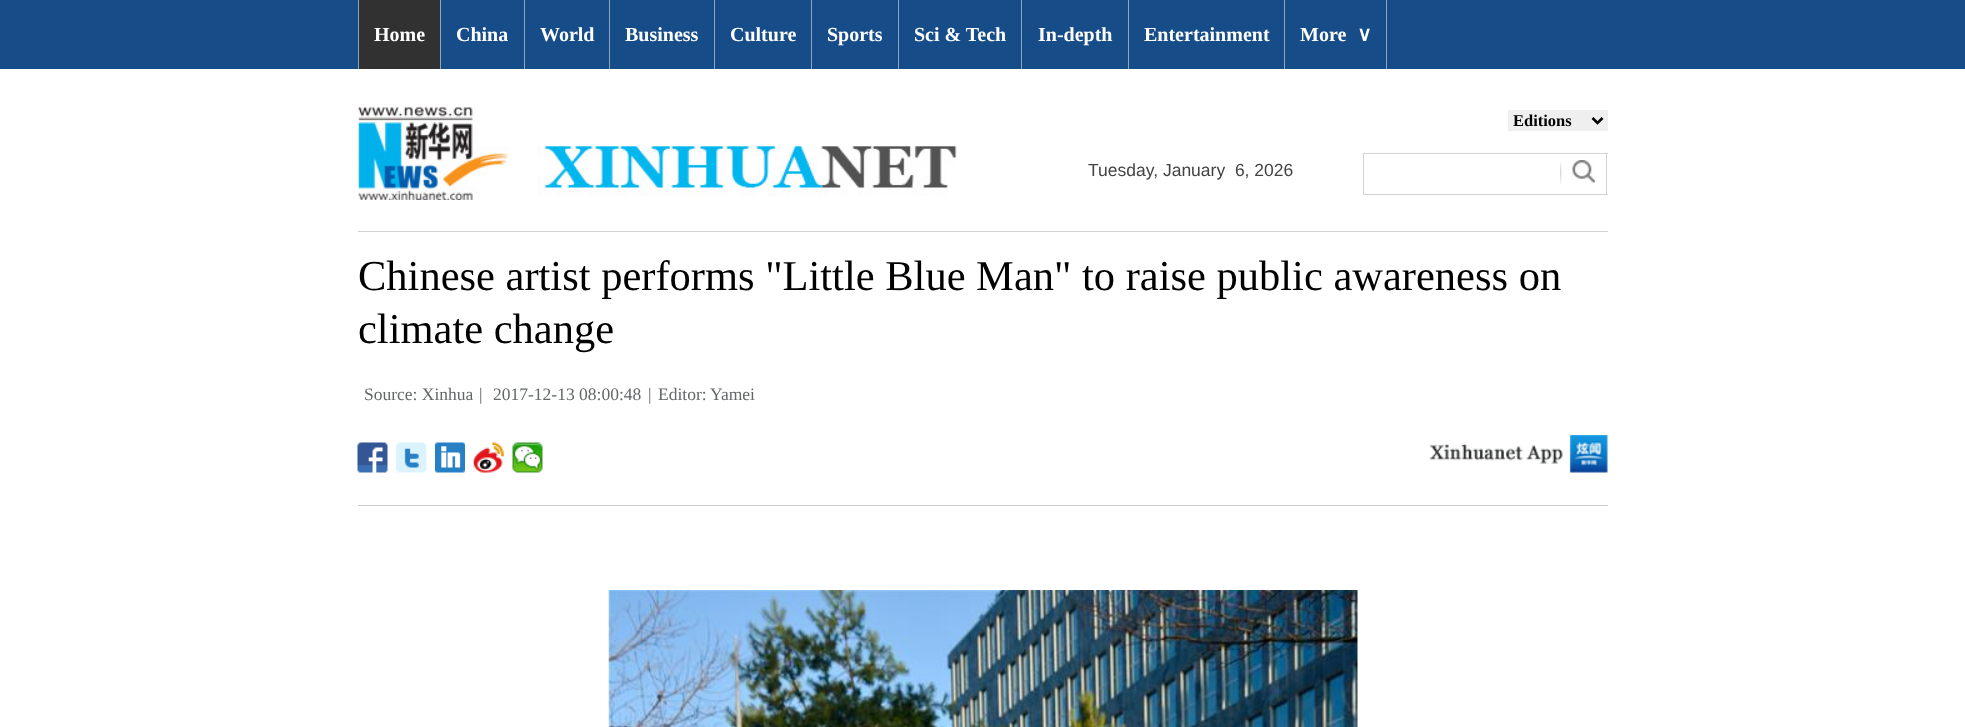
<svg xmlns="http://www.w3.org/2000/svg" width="1965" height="727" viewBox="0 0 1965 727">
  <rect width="100%" height="100%" fill="#fff"/>
  <path d="M0 0h1965v69H0z" fill="#164c88"/>
  <path d="M359 0h81v69H359z" fill="#313131"/>
  <path d="M358 0h1v69H358z" fill="#8ba6c4"/>
  <path d="M440 0h1v69H440z" fill="#8ba6c4"/>
  <path d="M524 0h1v69H524z" fill="#8ba6c4"/>
  <path d="M609 0h1v69H609z" fill="#8ba6c4"/>
  <path d="M714 0h1v69H714z" fill="#8ba6c4"/>
  <path d="M811 0h1v69H811z" fill="#8ba6c4"/>
  <path d="M898 0h1v69H898z" fill="#8ba6c4"/>
  <path d="M1021 0h1v69H1021z" fill="#8ba6c4"/>
  <path d="M1128 0h1v69H1128z" fill="#8ba6c4"/>
  <path d="M1386 0h1v69H1386z" fill="#8ba6c4"/>
  <path d="M1284 0h1v69H1284z" fill="#8ba6c4"/>
  <path d="M358 231h1250v1H358z" fill="#d3d3d3"/>
  <image x="357" y="106" width="600" height="94" href="img/1.png"/>
  <path d="M1508 110h100v21H1508z" fill="#efefef"/>
  <path d="M1592.5 118L1597.5 123L1602.5 118" fill="none" stroke="#000" stroke-width="2.5"/>
  <path d="M1363 153h245v1H1363z" fill="#d3d3d3"/>
  <path d="M1606 153h1v42H1606z" fill="#d3d3d3"/>
  <path d="M1363 194h245v1H1363z" fill="#d3d3d3"/>
  <image x="1560" y="160" width="35" height="24" href="img/2.png"/>
  <path d="M1363 153h1v42H1363z" fill="#d3d3d3"/>
  <image x="357" y="442" width="31" height="31" href="img/3.png"/>
  <image x="396" y="442" width="31" height="31" href="img/4.png"/>
  <image x="435" y="442" width="30" height="31" href="img/5.png"/>
  <image x="473" y="442" width="31" height="31" href="img/6.png"/>
  <image x="512" y="442" width="31" height="31" href="img/7.png"/>
  <image x="1429" y="435" width="179" height="38" href="img/8.png"/>
  <path d="M358 505h1250v1H358z" fill="#ccc"/>
  <image x="608" y="590" width="750" height="137" href="img/9.png"/>
  <g font-family="Liberation Serif" font-size="20" font-weight="bold" fill="#fff">
    <text x="374" y="41">Home</text>
    <text x="456" y="41">China</text>
    <text x="540" y="41">World</text>
    <text x="625" y="41">Business</text>
    <text x="730" y="41">Culture</text>
    <text x="827" y="41">Sports</text>
    <text x="914" y="41">Sci &amp; Tech</text>
    <text x="1038" y="41">In-depth</text>
    <text x="1144" y="41">Entertainment</text>
    <text x="1300" y="41">More</text>
  </g>
  <text x="1357" y="41" font-family="DejaVu Sans" font-size="20" font-weight="bold" fill="#fff">∨</text>
  <text x="1513" y="126" font-family="Liberation Serif" font-size="16.5" font-weight="bold" fill="#000">Editions</text>
  <text x="1088" y="176" font-family="Liberation Sans" font-size="17.5" fill="#434343" xml:space="preserve">Tuesday, January  6, 2026</text>
  <g font-family="Liberation Serif" font-size="42.5" fill="#000">
    <text x="358" y="290">Chinese artist performs "Little Blue Man" to raise public awareness on</text>
    <text x="358" y="343">climate change</text>
  </g>
  <g font-family="Liberation Serif" font-size="17.5" fill="#636767">
    <text x="364" y="400">Source: Xinhua</text>
    <text x="479" y="400">|</text>
    <text x="493" y="400">2017-12-13 08:00:48</text>
    <text x="648" y="400">|</text>
    <text x="658" y="400">Editor:</text>
    <text x="710" y="400">Yamei</text>
  </g>
</svg>
